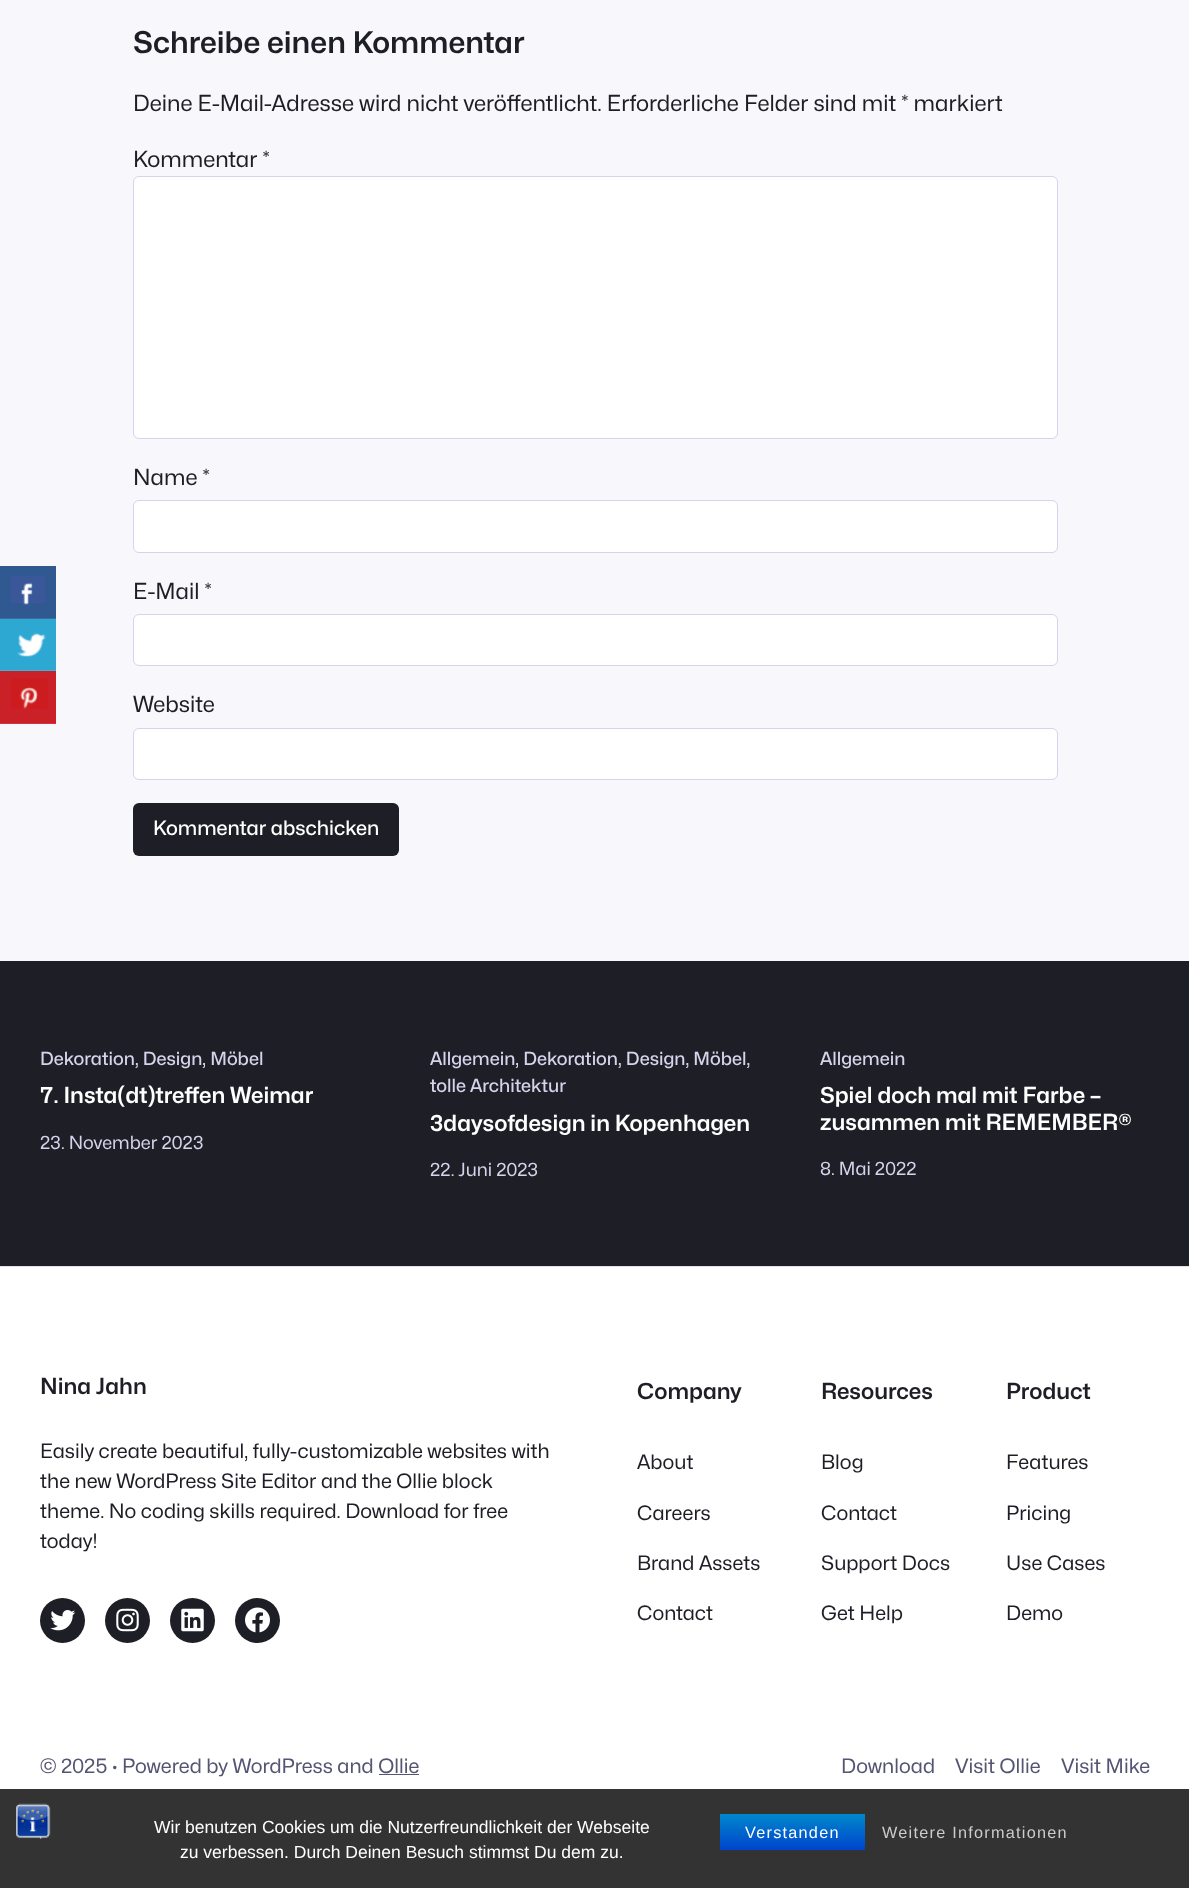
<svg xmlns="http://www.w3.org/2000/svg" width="1189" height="1888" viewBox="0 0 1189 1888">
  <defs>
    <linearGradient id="g1" gradientUnits="userSpaceOnUse" x1="793" y1="1814" x2="793" y2="1850"><stop offset="0" stop-color="#08c"/><stop offset="1" stop-color="#04c"/></linearGradient>
  </defs>
  <rect width="100%" height="100%" fill="#fff"/>
  <path d="M0 0h1189v961H0z" fill="#f8f7fc"/>
  <path d="M0 566h56v52H0z" fill="#305891"/>
  <path d="M0 618h56v1H0z" fill="#45699c"/>
  <image x="11" y="575" width="35" height="30" href="img/1.png"/>
  <path d="M0 619h56v51H0z" fill="#2ca8d2"/>
  <path d="M0 670h56v1H0z" fill="#41b1d7"/>
  <image x="17" y="633" width="29" height="24" href="img/2.png"/>
  <path d="M0 671h56v52H0z" fill="#ca2027"/>
  <path d="M0 723h56v1H0z" fill="#cf363d"/>
  <image x="11" y="678" width="37" height="31" href="img/3.png"/>
  <rect x="133.5" y="176.5" width="924" height="262" rx="5.5" fill="#fff" stroke="#d4d4ec"/>
  <rect x="133.5" y="500.5" width="924" height="52" rx="5.5" fill="#fff" stroke="#d4d4ec"/>
  <rect x="133.5" y="614.5" width="924" height="51" rx="5.5" fill="#fff" stroke="#d4d4ec"/>
  <rect x="133.5" y="728.5" width="924" height="51" rx="5.5" fill="#fff" stroke="#d4d4ec"/>
  <rect x="133" y="803" width="266" height="53" rx="6" fill="#1e1e26"/>
  <path d="M0 961h1189v305H0z" fill="#1e1e26"/>
  <path d="M0 1266h1189v1H0z" fill="#e3e3f0"/>
  <circle cx="62.5" cy="1620.5" r="22.5" fill="#1e1e26"/>
  <image x="50" y="1610" width="26" height="21" href="img/4.png"/>
  <circle cx="127.5" cy="1620.5" r="22.5" fill="#1e1e26"/>
  <image x="116" y="1608" width="23" height="24" href="img/5.png"/>
  <circle cx="192.5" cy="1620.5" r="22.5" fill="#1e1e26"/>
  <image x="181" y="1608" width="23" height="24" href="img/6.png"/>
  <circle cx="257.5" cy="1620.5" r="22.5" fill="#1e1e26"/>
  <image x="245" y="1607" width="25" height="26" href="img/7.png"/>
  <path d="M379 1774h40v1H379z" fill="#545473"/>
  <path d="M0 1789h1189v99H0z" fill="#333"/>
  <image x="16" y="1803" width="35" height="36" href="img/8.png"/>
  <path d="M720 1814h145v36H720z" fill="url(#g1)"/>
  <text x="133" y="53" font-family="Mona Sans" font-size="30" font-weight="600" fill="#1e1e26">Schreibe einen Kommentar</text>
  <g font-family="Mona Sans" font-size="22.2" fill="#1e1e26">
    <text x="133" y="111">Deine E-Mail-Adresse wird nicht veröffentlicht. Erforderliche Felder sind mit * markiert</text>
    <text x="133" y="167">Kommentar *</text>
    <text x="133" y="485">Name *</text>
    <text x="133" y="599">E-Mail *</text>
    <text x="133" y="712">Website</text>
  </g>
  <text x="153" y="835" font-family="Mona Sans" font-size="20" font-weight="500" fill="#fff">Kommentar abschicken</text>
  <text x="40" y="1065" font-family="Mona Sans" font-size="18.2" font-weight="500" fill="#d4d4ec">Dekoration, Design, Möbel</text>
  <text x="40" y="1103" font-family="Mona Sans" font-size="22.2" font-weight="600" fill="#fff">7. Insta(dt)treffen Weimar</text>
  <text x="40" y="1149" font-family="Mona Sans" font-size="18.2" fill="#d4d4ec">23. November 2023</text>
  <g font-family="Mona Sans" font-size="18.2" font-weight="500" fill="#d4d4ec">
    <text x="430" y="1065">Allgemein, Dekoration, Design, Möbel,</text>
    <text x="430" y="1092">tolle Architektur</text>
  </g>
  <text x="430" y="1131" font-family="Mona Sans" font-size="22.2" font-weight="600" fill="#fff">3daysofdesign in Kopenhagen</text>
  <text x="430" y="1176" font-family="Mona Sans" font-size="18.2" fill="#d4d4ec">22. Juni 2023</text>
  <text x="820" y="1065" font-family="Mona Sans" font-size="18.2" font-weight="500" fill="#d4d4ec">Allgemein</text>
  <g font-family="Mona Sans" font-size="22.2" font-weight="600" fill="#fff">
    <text x="820" y="1103">Spiel doch mal mit Farbe –</text>
    <text x="820" y="1130">zusammen mit REMEMBER®</text>
  </g>
  <text x="820" y="1175" font-family="Mona Sans" font-size="18.2" fill="#d4d4ec">8. Mai 2022</text>
  <text x="40" y="1394" font-family="Mona Sans" font-size="22.2" font-weight="600" fill="#1e1e26">Nina Jahn</text>
  <g font-family="Mona Sans" font-size="20" fill="#1e1e26">
    <text x="40" y="1458">Easily create beautiful, fully-customizable websites with</text>
    <text x="40" y="1488">the new WordPress Site Editor and the Ollie block</text>
    <text x="40" y="1518">theme. No coding skills required. Download for free</text>
    <text x="40" y="1548">today!</text>
  </g>
  <text x="637" y="1399" font-family="Mona Sans" font-size="22.2" font-weight="600" fill="#1e1e26">Company</text>
  <g font-family="Mona Sans" font-size="20" fill="#1e1e26">
    <text x="637" y="1469">About</text>
    <text x="637" y="1520">Careers</text>
    <text x="637" y="1570">Brand Assets</text>
    <text x="637" y="1620">Contact</text>
  </g>
  <text x="821" y="1399" font-family="Mona Sans" font-size="22.2" font-weight="600" fill="#1e1e26">Resources</text>
  <g font-family="Mona Sans" font-size="20" fill="#1e1e26">
    <text x="821" y="1469">Blog</text>
    <text x="821" y="1520">Contact</text>
    <text x="821" y="1570">Support Docs</text>
    <text x="821" y="1620">Get Help</text>
  </g>
  <text x="1006" y="1399" font-family="Mona Sans" font-size="22.2" font-weight="600" fill="#1e1e26">Product</text>
  <g font-family="Mona Sans" font-size="20" fill="#1e1e26">
    <text x="1006" y="1469">Features</text>
    <text x="1006" y="1520">Pricing</text>
    <text x="1006" y="1570">Use Cases</text>
    <text x="1006" y="1620">Demo</text>
  </g>
  <text x="40" y="1773" font-family="Mona Sans" font-size="20" fill="#545473">© 2025</text>
  <text x="112" y="1773" font-family="Mona Sans" font-size="20" font-weight="600" fill="#545473">·</text>
  <g font-family="Mona Sans" font-size="20" fill="#545473">
    <text x="122" y="1773">Powered by WordPress and Ollie</text>
    <text x="841" y="1773">Download</text>
    <text x="955" y="1773">Visit Ollie</text>
    <text x="1061" y="1773">Visit Mike</text>
  </g>
  <g font-family="Liberation Sans" font-size="17.5" fill="#fff">
    <text x="154" y="1833">Wir benutzen Cookies um die Nutzerfreundlichkeit der Webseite</text>
    <text x="180" y="1858">zu verbessen. Durch Deinen Besuch stimmst Du dem zu.</text>
  </g>
  <text x="745" y="1838" font-family="Liberation Sans" font-size="16.25" letter-spacing="1.25" fill="#fff">Verstanden</text>
  <text x="882" y="1838" font-family="Liberation Sans" font-size="16.25" letter-spacing="1.25" fill="#ccc">Weitere Informationen</text>
</svg>
